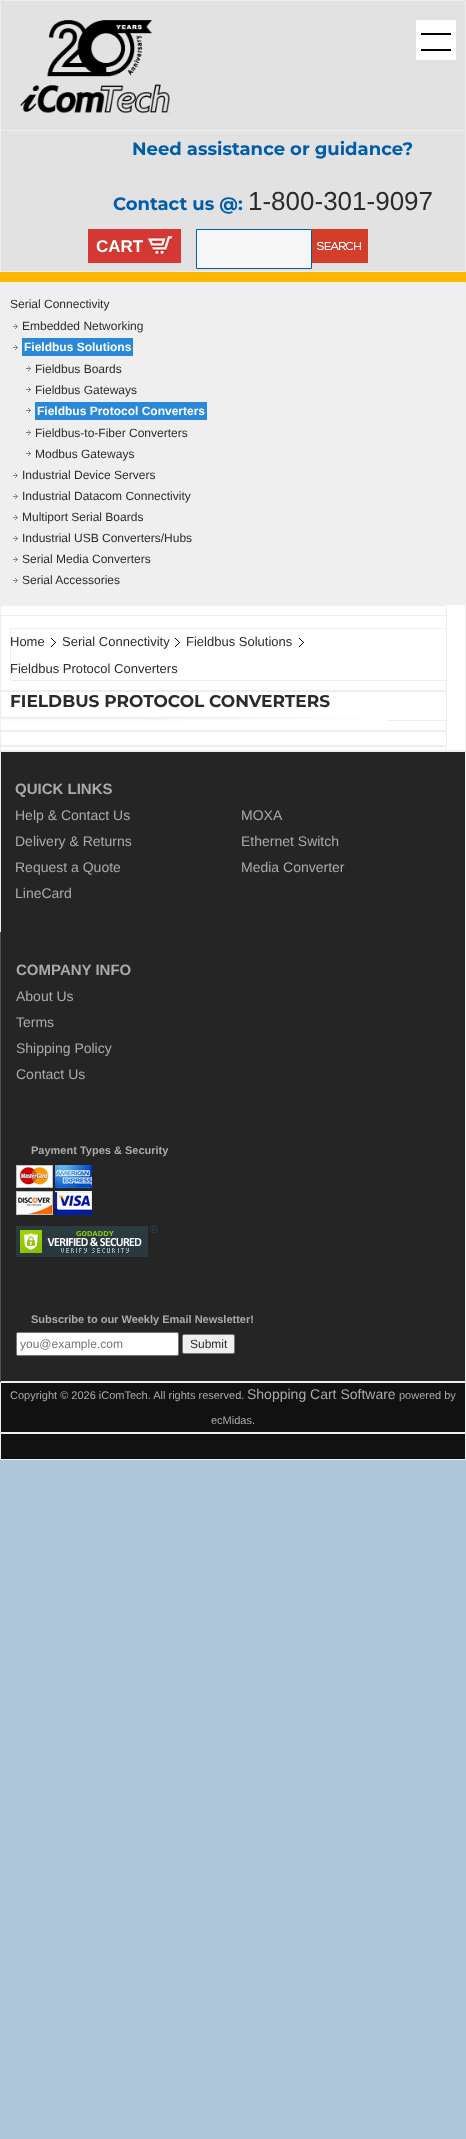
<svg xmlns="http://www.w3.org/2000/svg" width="466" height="2139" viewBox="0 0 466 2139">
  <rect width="100%" height="100%" fill="#aec6da"/>
  <path d="M0.5 0.5h465v271H0.5z" fill="#e2e2e2" stroke="#eee"/>
  <path d="M416 20h40v40H416z" fill="#fff"/>
  <path d="M421 33h30v2H421z" fill="#000"/>
  <path d="M421 49h30v2H421z" fill="#000"/>
  <image x="20" y="20" width="150" height="94" href="img/1.png"/>
  <path d="M0.5 130.5h465v141H0.5z" fill="none" stroke="#eee"/>
  <path d="M88 229h93v34H88z" fill="#d33832"/>
  <image x="148" y="236" width="25" height="18" href="img/2.png"/>
  <path d="M196.5 229.5h115v39H196.5z" fill="#f6f6f6" stroke="#005dab"/>
  <image x="312" y="229" width="56" height="34" href="img/3.png"/>
  <path d="M1 605h464v145H1z" fill="#fff"/>
  <path d="M0 272h466v10H0z" fill="#ffb801"/>
  <path d="M0.5 282.5h465v468H0.5z" fill="none" stroke="#eee"/>
  <path d="M1 283h464v322H1z" fill="#efefef"/>
  <image x="13" y="324" width="5" height="5" href="img/4.png"/>
  <image x="13" y="345" width="5" height="5" href="img/4.png"/>
  <path d="M22 338h111v18H22z" fill="#2a88d8"/>
  <image x="26" y="366" width="5" height="5" href="img/4.png"/>
  <image x="26" y="387" width="5" height="5" href="img/4.png"/>
  <image x="26" y="408" width="5" height="5" href="img/4.png"/>
  <path d="M35 402h172v18H35z" fill="#2a88d8"/>
  <image x="26" y="430" width="5" height="5" href="img/4.png"/>
  <image x="26" y="451" width="5" height="5" href="img/4.png"/>
  <image x="13" y="473" width="5" height="5" href="img/4.png"/>
  <image x="13" y="494" width="5" height="5" href="img/4.png"/>
  <image x="13" y="515" width="5" height="5" href="img/4.png"/>
  <image x="13" y="536" width="5" height="5" href="img/4.png"/>
  <image x="13" y="557" width="5" height="5" href="img/4.png"/>
  <image x="13" y="578" width="5" height="5" href="img/4.png"/>
  <path d="M0.5 605.5h446v125H0.5z" fill="none" stroke="#eee"/>
  <path d="M0.5 615.5h446v75H0.5z" fill="none" stroke="#eee"/>
  <path d="M10.5 628.5h436v52H10.5z" fill="none" stroke="#eee"/>
  <image x="51" y="638" width="5" height="9" href="img/5.png"/>
  <image x="175" y="638" width="5" height="9" href="img/5.png"/>
  <image x="299" y="638" width="5" height="9" href="img/5.png"/>
  <path d="M0.5 691.5h446v29H0.5z" fill="none" stroke="#eee"/>
  <image x="0" y="717" width="387" height="4" href="img/6.png"/>
  <path d="M0.5 731.5h446v14H0.5z" fill="none" stroke="#eee"/>
  <path d="M0.5 746.5h446v4H0.5z" fill="none" stroke="#eee"/>
  <path d="M0.5 751.5h465v630H0.5z" fill="#252525" stroke="#eee"/>
  <path d="M0 932h1v450H0z" fill="#515151"/>
  <image x="16" y="1165" width="76" height="50" href="img/7.png"/>
  <image x="16" y="1226" width="141" height="31" href="img/8.png"/>
  <rect x="16.5" y="1332.5" width="162" height="23" rx="1.5" fill="#fff" stroke="#767676"/>
  <rect x="182.5" y="1334.5" width="52" height="19" rx="1.5" fill="#efefef" stroke="#767676"/>
  <path d="M1 1383h464v76H1z" fill="#111"/>
  <path d="M0.5 1382.5h465v50H0.5z" fill="none" stroke="#eee"/>
  <path d="M0.5 1433.5h465v26H0.5z" fill="none" stroke="#eee"/>
  <g font-family="Montserrat" font-size="18" font-weight="bold" fill="#005dab">
    <text x="132" y="155">Need assistance or guidance?</text>
    <text x="113" y="210">Contact us @:</text>
  </g>
  <text x="248" y="210" font-family="Liberation Sans" font-size="26" fill="#2b2b2b">1-800-301-9097</text>
  <text x="96" y="252" font-family="Liberation Sans" font-size="17" font-weight="bold" fill="#fff">CART</text>
  <g font-family="Liberation Sans" font-size="12" fill="#2b2b2b">
    <text x="10" y="308">Serial Connectivity</text>
    <text x="22" y="330">Embedded Networking</text>
  </g>
  <text x="24" y="351" font-family="Liberation Sans" font-size="12" font-weight="bold" fill="#fff">Fieldbus Solutions</text>
  <g font-family="Liberation Sans" font-size="12" fill="#2b2b2b">
    <text x="35" y="373">Fieldbus Boards</text>
    <text x="35" y="394">Fieldbus Gateways</text>
  </g>
  <text x="37" y="415" font-family="Liberation Sans" font-size="12" font-weight="bold" fill="#fff">Fieldbus Protocol Converters</text>
  <g font-family="Liberation Sans" font-size="12" fill="#2b2b2b">
    <text x="35" y="437">Fieldbus-to-Fiber Converters</text>
    <text x="35" y="458">Modbus Gateways</text>
    <text x="22" y="479">Industrial Device Servers</text>
    <text x="22" y="500">Industrial Datacom Connectivity</text>
    <text x="22" y="521">Multiport Serial Boards</text>
    <text x="22" y="542">Industrial USB Converters/Hubs</text>
    <text x="22" y="563">Serial Media Converters</text>
    <text x="22" y="584">Serial Accessories</text>
  </g>
  <g font-family="Liberation Sans" font-size="13" fill="#2b2b2b">
    <text x="10" y="646">Home</text>
    <text x="62" y="646">Serial Connectivity</text>
    <text x="186" y="646">Fieldbus Solutions</text>
    <text x="10" y="673">Fieldbus Protocol Converters</text>
  </g>
  <text x="10" y="707" font-family="Montserrat" font-size="17" font-weight="bold" fill="#2b2b2b">FIELDBUS PROTOCOL CONVERTERS</text>
  <text x="15" y="794" font-family="Liberation Sans" font-size="15" font-weight="bold" fill="#ababab">QUICK LINKS</text>
  <g font-family="Liberation Sans" font-size="14" fill="#ababab">
    <text x="15" y="820">Help &amp; Contact Us</text>
    <text x="15" y="846">Delivery &amp; Returns</text>
    <text x="15" y="872">Request a Quote</text>
    <text x="15" y="898">LineCard</text>
    <text x="241" y="820">MOXA</text>
    <text x="241" y="846">Ethernet Switch</text>
    <text x="241" y="872">Media Converter</text>
  </g>
  <text x="16" y="975" font-family="Liberation Sans" font-size="15" font-weight="bold" fill="#ababab">COMPANY INFO</text>
  <g font-family="Liberation Sans" font-size="14" fill="#ababab">
    <text x="16" y="1001">About Us</text>
    <text x="16" y="1027">Terms</text>
    <text x="16" y="1053">Shipping Policy</text>
    <text x="16" y="1079">Contact Us</text>
  </g>
  <g font-family="Liberation Sans" font-size="11" font-weight="bold" fill="#ababab">
    <text x="31" y="1154">Payment Types &amp; Security</text>
    <text x="31" y="1323">Subscribe to our Weekly Email Newsletter!</text>
  </g>
  <text x="20" y="1348" font-family="Liberation Sans" font-size="12" fill="#757575">you@example.com</text>
  <text x="190" y="1348" font-family="Liberation Sans" font-size="12" fill="#2b2b2b">Submit</text>
  <text x="10" y="1399" font-family="Liberation Sans" font-size="11" fill="#ababab">Copyright © 2026 iComTech. All rights reserved.</text>
  <text x="247" y="1399" font-family="Liberation Sans" font-size="14" fill="#ababab">Shopping Cart Software</text>
  <g font-family="Liberation Sans" font-size="11" fill="#ababab">
    <text x="399" y="1399">powered by</text>
    <text x="211" y="1424">ecMidas.</text>
  </g>
</svg>
